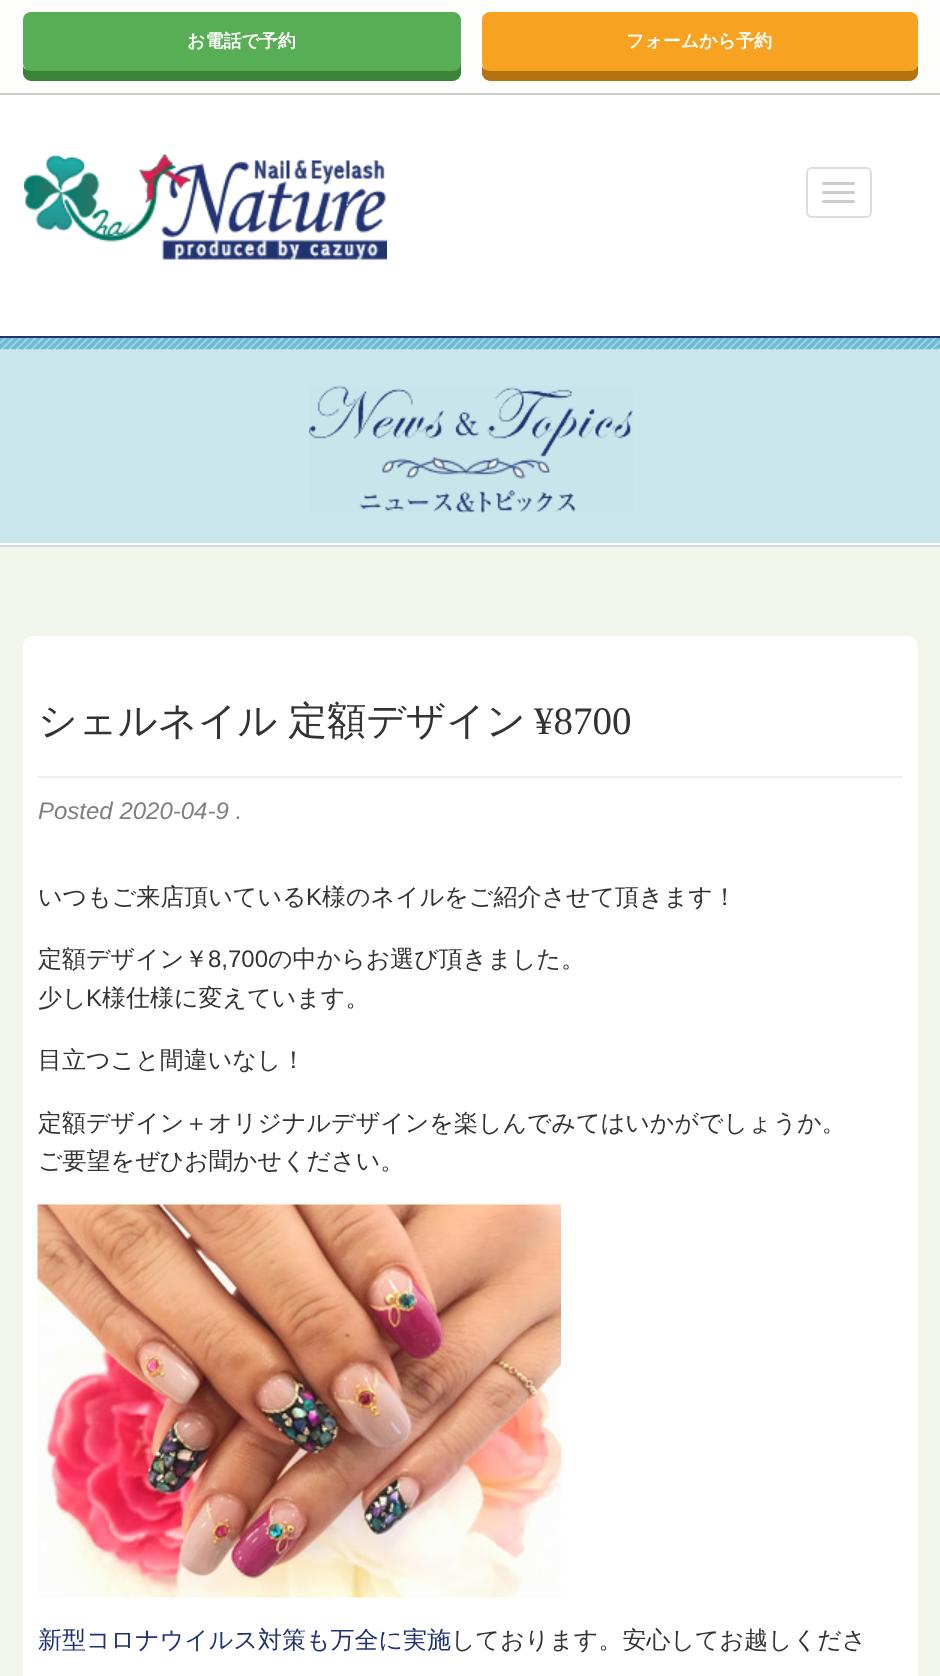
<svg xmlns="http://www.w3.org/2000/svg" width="940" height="1676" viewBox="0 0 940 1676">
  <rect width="100%" height="100%" fill="#f3f6ea"/>
  <path d="M0 0h940v93H0z" fill="#fefefd"/>
  <path d="M0 93h940v2H0z" fill="#ccc"/>
  <path d="M23 66V73C23 77 27 81 31 81H453C457 81 461 77 461 73V31L460 28V63C460 67 457 70 453 70H30C27 70 24 69 23 66Z" fill="#3c833a"/>
  <rect x="23" y="12" width="438" height="59" rx="8" fill="#58ae55"/>
  <path d="M482 66V73C482 77 486 81 490 81H910C914 81 918 77 918 73V63C918 67 915 70 910 70H489C486 70 483 69 482 66Z" fill="#b37310"/>
  <rect x="482" y="12" width="436" height="59" rx="8" fill="#f7a321"/>
  <path d="M0 95h940v241H0z" fill="#fff"/>
  <image x="24" y="154" width="363" height="106" href="img/1.png"/>
  <rect x="807" y="168" width="64" height="49" rx="5" fill="none" stroke="#ddd" stroke-width="2"/>
  <rect x="822" y="182" width="33" height="3" rx="1.5" fill="#ccc"/>
  <rect x="822" y="191" width="33" height="3" rx="1.5" fill="#ccc"/>
  <rect x="822" y="200" width="33" height="3" rx="1.5" fill="#ccc"/>
  <image x="0" y="338" width="940" height="12" href="img/2.png"/>
  <path d="M0 336h940v2H0z" fill="#203270"/>
  <path d="M0 545h940v2H0z" fill="#d2d6e2"/>
  <path d="M0 350h940v193H0z" fill="#c9e7ed"/>
  <path d="M0 543h940v2H0z" fill="#fff"/>
  <image x="309" y="385" width="324" height="128" href="img/3.png"/>
  <rect x="23" y="636" width="895" height="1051" rx="11" fill="#fff"/>
  <path d="M38 776h865v2H38z" fill="#eee"/>
  <image x="37" y="1204" width="524" height="394" href="img/4.png"/>
  <g font-family="WenQuanYi Zen Hei" font-size="18" font-weight="bold" fill="#fff">
    <text x="187" y="47">お電話で予約</text>
    <text x="626" y="47">フォームから予約</text>
  </g>
  <text x="38" y="734" word-spacing="-1" font-family="WenQuanYi Zen Hei" font-size="39" font-weight="500" fill="#333">シェルネイル 定額デザイン</text>
  <text x="534" y="734" font-family="Liberation Serif" font-size="39" fill="#333">¥8700</text>
  <text x="38" y="819" font-family="Liberation Sans" font-size="24" font-style="italic" fill="#808080">Posted 2020-04-9 .</text>
  <text x="38" y="905" font-family="WenQuanYi Zen Hei" font-size="24" font-weight="500" fill="#333">いつもご来店頂いている</text>
  <text x="306" y="905" font-family="Liberation Sans" font-size="24" fill="#333">K</text>
  <g font-family="WenQuanYi Zen Hei" font-size="24" font-weight="500" fill="#333">
    <text x="322" y="905">様のネイルをご紹介させて頂きます！</text>
    <text x="38" y="967">定額デザイン￥</text>
  </g>
  <text x="208" y="967" font-family="Liberation Sans" font-size="24" fill="#333">8,700</text>
  <g font-family="WenQuanYi Zen Hei" font-size="24" font-weight="500" fill="#333">
    <text x="268" y="967">の中からお選び頂きました。</text>
    <text x="38" y="1006">少し</text>
  </g>
  <text x="86" y="1006" font-family="Liberation Sans" font-size="24" fill="#333">K</text>
  <g font-family="WenQuanYi Zen Hei" font-size="24" font-weight="500" fill="#333">
    <text x="102" y="1006">様仕様に変えています。</text>
    <text x="38" y="1068">目立つこと間違いなし！</text>
    <text x="38" y="1131">定額デザイン＋オリジナルデザインを楽しんでみてはいかがでしょうか。</text>
    <text x="38" y="1169">ご要望をぜひお聞かせください。</text>
  </g>
  <text x="38" y="1648" font-family="WenQuanYi Zen Hei" font-size="24" font-weight="500" fill="#203270">新型コロナウイルス対策も万全に実施</text>
  <text x="451" y="1648" font-family="WenQuanYi Zen Hei" font-size="24" font-weight="500" fill="#333">しております。安心してお越しくださ</text>
</svg>
